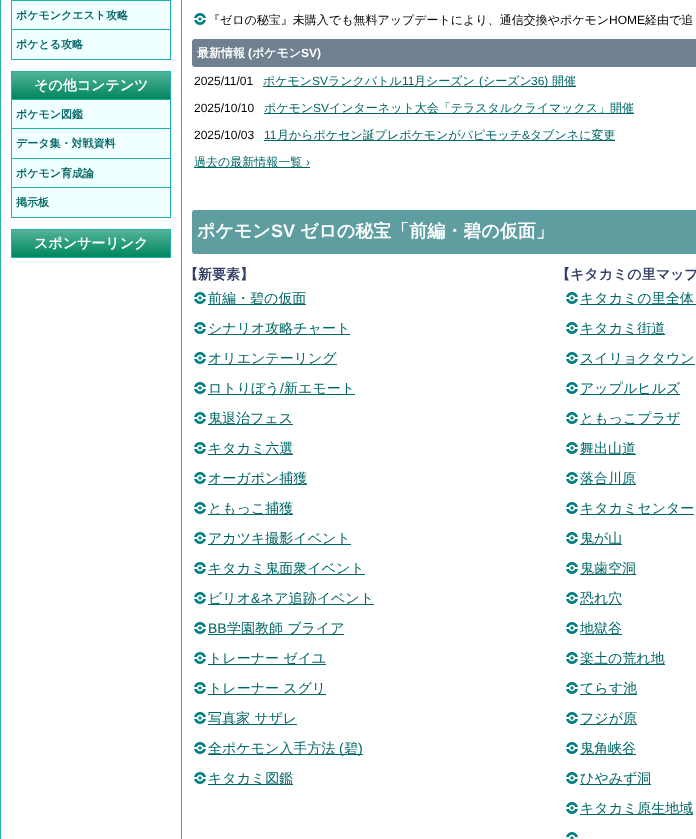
<svg xmlns="http://www.w3.org/2000/svg" width="696" height="839" viewBox="0 0 696 839">
  <defs>
    <linearGradient id="g1" gradientUnits="userSpaceOnUse" x1="91" y1="72" x2="91" y2="99"><stop offset="0" stop-color="#52b398"/><stop offset="1" stop-color="#00855f"/></linearGradient>
    <linearGradient id="g2" gradientUnits="userSpaceOnUse" x1="91" y1="230" x2="91" y2="257"><stop offset="0" stop-color="#52b398"/><stop offset="1" stop-color="#00855f"/></linearGradient>
  </defs>
  <rect width="100%" height="100%" fill="#fff"/>
  <path d="M0.5 -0.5h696v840H0.5z" fill="none" stroke="#20b2aa"/>
  <path d="M12 1h158v58H12z" fill="#f0ffff"/>
  <path d="M11 59h160v1H11z" fill="#20b2aa"/>
  <path d="M11 0h160v1H11z" fill="#20b2aa"/>
  <path d="M170 0h1v29H170z" fill="#20b2aa"/>
  <path d="M11 0h1v29H11z" fill="#20b2aa"/>
  <path d="M11 29h160v1H11z" fill="#20b2aa"/>
  <path d="M170 29h1v30H170z" fill="#20b2aa"/>
  <path d="M11 29h1v30H11z" fill="#20b2aa"/>
  <path d="M12 72h158v27H12z" fill="url(#g1)"/>
  <path d="M11 71h160v1H11z" fill="#20b2aa"/>
  <path d="M170 71h1v28H170z" fill="#20b2aa"/>
  <path d="M11 71h1v28H11z" fill="#20b2aa"/>
  <path d="M12 100h158v117H12z" fill="#f0ffff"/>
  <path d="M11 217h160v1H11z" fill="#20b2aa"/>
  <path d="M11 99h160v1H11z" fill="#20b2aa"/>
  <path d="M170 99h1v29H170z" fill="#20b2aa"/>
  <path d="M11 99h1v29H11z" fill="#20b2aa"/>
  <path d="M11 128h160v1H11z" fill="#20b2aa"/>
  <path d="M170 128h1v30H170z" fill="#20b2aa"/>
  <path d="M11 128h1v30H11z" fill="#20b2aa"/>
  <path d="M11 158h160v1H11z" fill="#20b2aa"/>
  <path d="M170 158h1v29H170z" fill="#20b2aa"/>
  <path d="M11 158h1v29H11z" fill="#20b2aa"/>
  <path d="M11 187h160v1H11z" fill="#20b2aa"/>
  <path d="M170 187h1v30H170z" fill="#20b2aa"/>
  <path d="M11 187h1v30H11z" fill="#20b2aa"/>
  <path d="M12 230h158v27H12z" fill="url(#g2)"/>
  <path d="M11 229h160v1H11z" fill="#20b2aa"/>
  <path d="M170 229h1v28H170z" fill="#20b2aa"/>
  <path d="M11 229h1v28H11z" fill="#20b2aa"/>
  <path d="M11 257h160v1H11z" fill="#20b2aa"/>
  <path d="M181.5 -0.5h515v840H181.5z" fill="none" stroke="#20b2aa"/>
  <image x="194" y="13" width="12" height="12" href="img/1.png"/>
  <rect x="192" y="39" width="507" height="28" rx="3" fill="#708090"/>
  <path d="M263 86h313v1H263z" fill="#066"/>
  <path d="M264 113h370v1H264z" fill="#066"/>
  <path d="M264 140h351v1H264z" fill="#066"/>
  <path d="M194 167h116v1H194z" fill="#066"/>
  <rect x="192" y="210" width="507" height="44" rx="3" fill="#5f9ea0"/>
  <image x="194" y="292" width="12" height="12" href="img/1.png"/>
  <path d="M208 304h98v1H208z" fill="#066"/>
  <image x="194" y="322" width="12" height="12" href="img/1.png"/>
  <path d="M208 334h142v1H208z" fill="#066"/>
  <image x="194" y="352" width="12" height="12" href="img/1.png"/>
  <path d="M208 364h129v1H208z" fill="#066"/>
  <image x="194" y="382" width="12" height="12" href="img/1.png"/>
  <path d="M208 394h147v1H208z" fill="#066"/>
  <image x="194" y="412" width="12" height="12" href="img/1.png"/>
  <path d="M208 424h85v1H208z" fill="#066"/>
  <image x="194" y="442" width="12" height="12" href="img/1.png"/>
  <path d="M208 454h85v1H208z" fill="#066"/>
  <image x="194" y="472" width="12" height="12" href="img/1.png"/>
  <path d="M208 484h99v1H208z" fill="#066"/>
  <image x="194" y="502" width="12" height="12" href="img/1.png"/>
  <path d="M208 514h85v1H208z" fill="#066"/>
  <image x="194" y="532" width="12" height="12" href="img/1.png"/>
  <path d="M208 544h143v1H208z" fill="#066"/>
  <image x="194" y="562" width="12" height="12" href="img/1.png"/>
  <path d="M208 574h157v1H208z" fill="#066"/>
  <image x="194" y="592" width="12" height="12" href="img/1.png"/>
  <path d="M208 604h166v1H208z" fill="#066"/>
  <image x="194" y="622" width="12" height="12" href="img/1.png"/>
  <path d="M208 634h136v1H208z" fill="#066"/>
  <image x="194" y="652" width="12" height="12" href="img/1.png"/>
  <path d="M208 664h118v1H208z" fill="#066"/>
  <image x="194" y="682" width="12" height="12" href="img/1.png"/>
  <path d="M208 694h118v1H208z" fill="#066"/>
  <image x="194" y="712" width="12" height="12" href="img/1.png"/>
  <path d="M208 724h89v1H208z" fill="#066"/>
  <image x="194" y="742" width="12" height="12" href="img/1.png"/>
  <path d="M208 754h155v1H208z" fill="#066"/>
  <image x="194" y="772" width="12" height="12" href="img/1.png"/>
  <path d="M208 784h85v1H208z" fill="#066"/>
  <image x="566" y="292" width="12" height="12" href="img/1.png"/>
  <path d="M580 304h116v1H580z" fill="#066"/>
  <image x="566" y="322" width="12" height="12" href="img/1.png"/>
  <path d="M580 334h85v1H580z" fill="#066"/>
  <image x="566" y="352" width="12" height="12" href="img/1.png"/>
  <path d="M580 364h115v1H580z" fill="#066"/>
  <image x="566" y="382" width="12" height="12" href="img/1.png"/>
  <path d="M580 394h100v1H580z" fill="#066"/>
  <image x="566" y="412" width="12" height="12" href="img/1.png"/>
  <path d="M580 424h100v1H580z" fill="#066"/>
  <image x="566" y="442" width="12" height="12" href="img/1.png"/>
  <path d="M580 454h56v1H580z" fill="#066"/>
  <image x="566" y="472" width="12" height="12" href="img/1.png"/>
  <path d="M580 484h56v1H580z" fill="#066"/>
  <image x="566" y="502" width="12" height="12" href="img/1.png"/>
  <path d="M580 514h114v1H580z" fill="#066"/>
  <image x="566" y="532" width="12" height="12" href="img/1.png"/>
  <path d="M580 544h42v1H580z" fill="#066"/>
  <image x="566" y="562" width="12" height="12" href="img/1.png"/>
  <path d="M580 574h56v1H580z" fill="#066"/>
  <image x="566" y="592" width="12" height="12" href="img/1.png"/>
  <path d="M580 604h42v1H580z" fill="#066"/>
  <image x="566" y="622" width="12" height="12" href="img/1.png"/>
  <path d="M580 634h42v1H580z" fill="#066"/>
  <image x="566" y="652" width="12" height="12" href="img/1.png"/>
  <path d="M580 664h85v1H580z" fill="#066"/>
  <image x="566" y="682" width="12" height="12" href="img/1.png"/>
  <path d="M580 694h57v1H580z" fill="#066"/>
  <image x="566" y="712" width="12" height="12" href="img/1.png"/>
  <path d="M580 724h57v1H580z" fill="#066"/>
  <image x="566" y="742" width="12" height="12" href="img/1.png"/>
  <path d="M580 754h56v1H580z" fill="#066"/>
  <image x="566" y="772" width="12" height="12" href="img/1.png"/>
  <path d="M580 784h71v1H580z" fill="#066"/>
  <image x="566" y="802" width="12" height="12" href="img/1.png"/>
  <path d="M580 814h113v1H580z" fill="#066"/>
  <image x="566" y="832" width="12" height="7" href="img/2.png"/>
  <g font-family="WenQuanYi Zen Hei" font-size="11" font-weight="bold" fill="#066">
    <text x="16" y="19">ポケモンクエスト攻略</text>
    <text x="16" y="48">ポケとる攻略</text>
  </g>
  <text x="34" y="90" font-family="WenQuanYi Zen Hei" font-size="14" font-weight="bold" fill="#fff">その他コンテンツ</text>
  <g font-family="WenQuanYi Zen Hei" font-size="11" font-weight="bold" fill="#066">
    <text x="16" y="118">ポケモン図鑑</text>
    <text x="16" y="147">データ集・対戦資料</text>
    <text x="16" y="177">ポケモン育成論</text>
    <text x="16" y="206">掲示板</text>
  </g>
  <text x="34" y="248" font-family="WenQuanYi Zen Hei" font-size="14" font-weight="bold" fill="#fff">スポンサーリンク</text>
  <text x="208" y="24" font-family="WenQuanYi Zen Hei" font-size="12" font-weight="500" fill="#000">『ゼロの秘宝』未購入でも無料アップデートにより、通信交換やポケモン</text>
  <text x="609" y="24" font-family="Liberation Sans" font-size="12" fill="#000">HOME</text>
  <text x="645" y="24" font-family="WenQuanYi Zen Hei" font-size="12" font-weight="500" fill="#000">経由で追</text>
  <text x="197" y="57" font-family="WenQuanYi Zen Hei" font-size="12" font-weight="bold" fill="#fff">最新情報</text>
  <text x="248" y="57" font-family="Liberation Sans" font-size="12" font-weight="bold" fill="#fff">(</text>
  <text x="252" y="57" font-family="WenQuanYi Zen Hei" font-size="12" font-weight="bold" fill="#fff">ポケモン</text>
  <text x="301" y="57" font-family="Liberation Sans" font-size="12" font-weight="bold" fill="#fff">SV)</text>
  <text x="194" y="85" font-family="Liberation Sans" font-size="12" fill="#000">2025/11/01</text>
  <text x="263" y="85" font-family="WenQuanYi Zen Hei" font-size="12" font-weight="500" fill="#066">ポケモン</text>
  <text x="312" y="85" font-family="Liberation Sans" font-size="12" fill="#066">SV</text>
  <text x="328" y="85" font-family="WenQuanYi Zen Hei" font-size="12" font-weight="500" fill="#066">ランクバトル</text>
  <text x="402" y="85" font-family="Liberation Sans" font-size="12" fill="#066">11</text>
  <text x="414" y="85" font-family="WenQuanYi Zen Hei" font-size="12" font-weight="500" fill="#066">月シーズン</text>
  <text x="479" y="85" font-family="Liberation Sans" font-size="12" fill="#066">(</text>
  <text x="483" y="85" font-family="WenQuanYi Zen Hei" font-size="12" font-weight="500" fill="#066">シーズン</text>
  <text x="531" y="85" font-family="Liberation Sans" font-size="12" fill="#066">36)</text>
  <text x="552" y="85" font-family="WenQuanYi Zen Hei" font-size="12" font-weight="500" fill="#066">開催</text>
  <text x="194" y="112" font-family="Liberation Sans" font-size="12" fill="#000">2025/10/10</text>
  <text x="264" y="112" font-family="WenQuanYi Zen Hei" font-size="12" font-weight="500" fill="#066">ポケモン</text>
  <text x="313" y="112" font-family="Liberation Sans" font-size="12" fill="#066">SV</text>
  <text x="329" y="112" font-family="WenQuanYi Zen Hei" font-size="12" font-weight="500" fill="#066">インターネット大会「テラスタルクライマックス」開催</text>
  <text x="194" y="139" font-family="Liberation Sans" font-size="12" fill="#000">2025/10/03</text>
  <text x="264" y="139" font-family="Liberation Sans" font-size="12" fill="#066">11</text>
  <text x="277" y="139" font-family="WenQuanYi Zen Hei" font-size="12" font-weight="500" fill="#066">月からポケセン誕プレポケモンがパピモッチ</text>
  <text x="522" y="139" font-family="Liberation Sans" font-size="12" fill="#066">&amp;</text>
  <g font-family="WenQuanYi Zen Hei" font-size="12" font-weight="500" fill="#066">
    <text x="530" y="139">タブンネに変更</text>
    <text x="194" y="166">過去の最新情報一覧</text>
  </g>
  <text x="306" y="166" font-family="Liberation Sans" font-size="12" fill="#066">›</text>
  <text x="197" y="237" font-family="WenQuanYi Zen Hei" font-size="18" font-weight="bold" fill="#fff">ポケモン</text>
  <text x="271" y="237" font-family="Liberation Sans" font-size="18" font-weight="bold" fill="#fff">SV</text>
  <text x="300" y="237" font-family="WenQuanYi Zen Hei" font-size="18" font-weight="bold" fill="#fff">ゼロの秘宝「前編・碧の仮面」</text>
  <text x="184" y="279" font-family="WenQuanYi Zen Hei" font-size="14" font-weight="bold" fill="#334066">【新要素】</text>
  <g font-family="WenQuanYi Zen Hei" font-size="14" font-weight="500" fill="#066">
    <text x="208" y="303">前編・碧の仮面</text>
    <text x="208" y="333">シナリオ攻略チャート</text>
    <text x="208" y="363">オリエンテーリング</text>
    <text x="208" y="393">ロトりぼう</text>
  </g>
  <text x="280" y="393" font-family="Liberation Sans" font-size="14" fill="#066">/</text>
  <g font-family="WenQuanYi Zen Hei" font-size="14" font-weight="500" fill="#066">
    <text x="284" y="393">新エモート</text>
    <text x="208" y="423">鬼退治フェス</text>
    <text x="208" y="453">キタカミ六選</text>
    <text x="208" y="483">オーガポン捕獲</text>
    <text x="208" y="513">ともっこ捕獲</text>
    <text x="208" y="543">アカツキ撮影イベント</text>
    <text x="208" y="573">キタカミ鬼面衆イベント</text>
    <text x="208" y="603">ビリオ</text>
  </g>
  <text x="251" y="603" font-family="Liberation Sans" font-size="14" fill="#066">&amp;</text>
  <text x="260" y="603" font-family="WenQuanYi Zen Hei" font-size="14" font-weight="500" fill="#066">ネア追跡イベント</text>
  <text x="208" y="633" font-family="Liberation Sans" font-size="14" fill="#066">BB</text>
  <g font-family="WenQuanYi Zen Hei" font-size="14" font-weight="500" fill="#066">
    <text x="227" y="633">学園教師 ブライア</text>
    <text x="208" y="663">トレーナー ゼイユ</text>
    <text x="208" y="693">トレーナー スグリ</text>
    <text x="208" y="723">写真家 サザレ</text>
    <text x="208" y="753">全ポケモン入手方法</text>
  </g>
  <text x="339" y="753" font-family="Liberation Sans" font-size="14" fill="#066">(</text>
  <text x="344" y="753" font-family="WenQuanYi Zen Hei" font-size="14" font-weight="500" fill="#066">碧</text>
  <text x="358" y="753" font-family="Liberation Sans" font-size="14" fill="#066">)</text>
  <text x="208" y="783" font-family="WenQuanYi Zen Hei" font-size="14" font-weight="500" fill="#066">キタカミ図鑑</text>
  <text x="556" y="279" font-family="WenQuanYi Zen Hei" font-size="14" font-weight="bold" fill="#334066">【キタカミの里マップ</text>
  <g font-family="WenQuanYi Zen Hei" font-size="14" font-weight="500" fill="#066">
    <text x="580" y="303">キタカミの里全体</text>
    <text x="580" y="333">キタカミ街道</text>
    <text x="580" y="363">スイリョクタウン</text>
    <text x="580" y="393">アップルヒルズ</text>
    <text x="580" y="423">ともっこプラザ</text>
    <text x="580" y="453">舞出山道</text>
    <text x="580" y="483">落合川原</text>
    <text x="580" y="513">キタカミセンター</text>
    <text x="580" y="543">鬼が山</text>
    <text x="580" y="573">鬼歯空洞</text>
    <text x="580" y="603">恐れ穴</text>
    <text x="580" y="633">地獄谷</text>
    <text x="580" y="663">楽土の荒れ地</text>
    <text x="580" y="693">てらす池</text>
    <text x="580" y="723">フジが原</text>
    <text x="580" y="753">鬼角峡谷</text>
    <text x="580" y="783">ひやみず洞</text>
    <text x="580" y="813">キタカミ原生地域</text>
  </g>
</svg>
